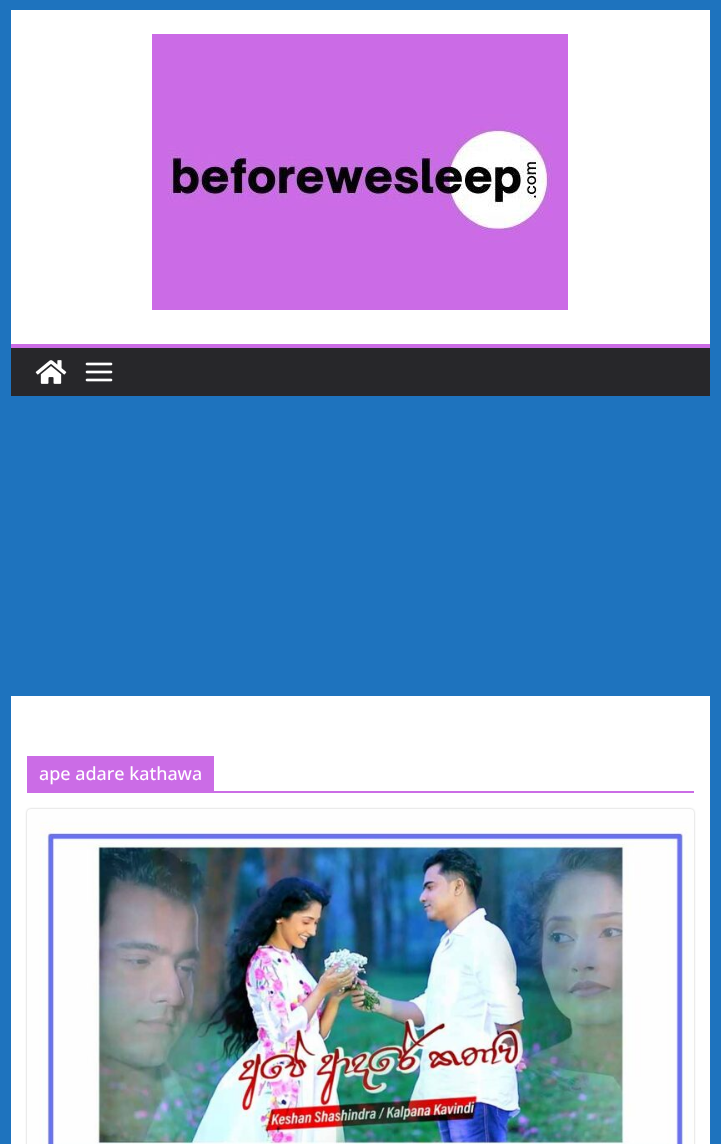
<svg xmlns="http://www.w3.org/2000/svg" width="721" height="1144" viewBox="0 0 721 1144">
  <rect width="100%" height="100%" fill="#1e73be"/>
  <path d="M11 10h699v334H11z" fill="#fff"/>
  <image x="152" y="34" width="416" height="276" href="img/1.png"/>
  <path d="M11 348h699v48H11z" fill="#27272a"/>
  <path d="M11 344h699v4H11z" fill="#cb6ce6"/>
  <image x="35" y="360" width="32" height="24" href="img/2.png"/>
  <image x="85" y="362" width="28" height="20" href="img/3.png"/>
  <path d="M11 696h699v448H11z" fill="#fff"/>
  <path d="M27 791h667v2H27z" fill="#cb6ce6"/>
  <path d="M27 756h187v35H27z" fill="#cb6ce6"/>
  <rect x="27" y="809" width="667" height="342" rx="4" fill="#0000003d" filter="blur(1px)"/>
  <image x="27" y="809" width="667" height="335" href="img/4.png"/>
  <text x="39" y="780" font-family="Open Sans" font-size="18" font-weight="500" fill="#fff">ape adare kathawa</text>
</svg>
